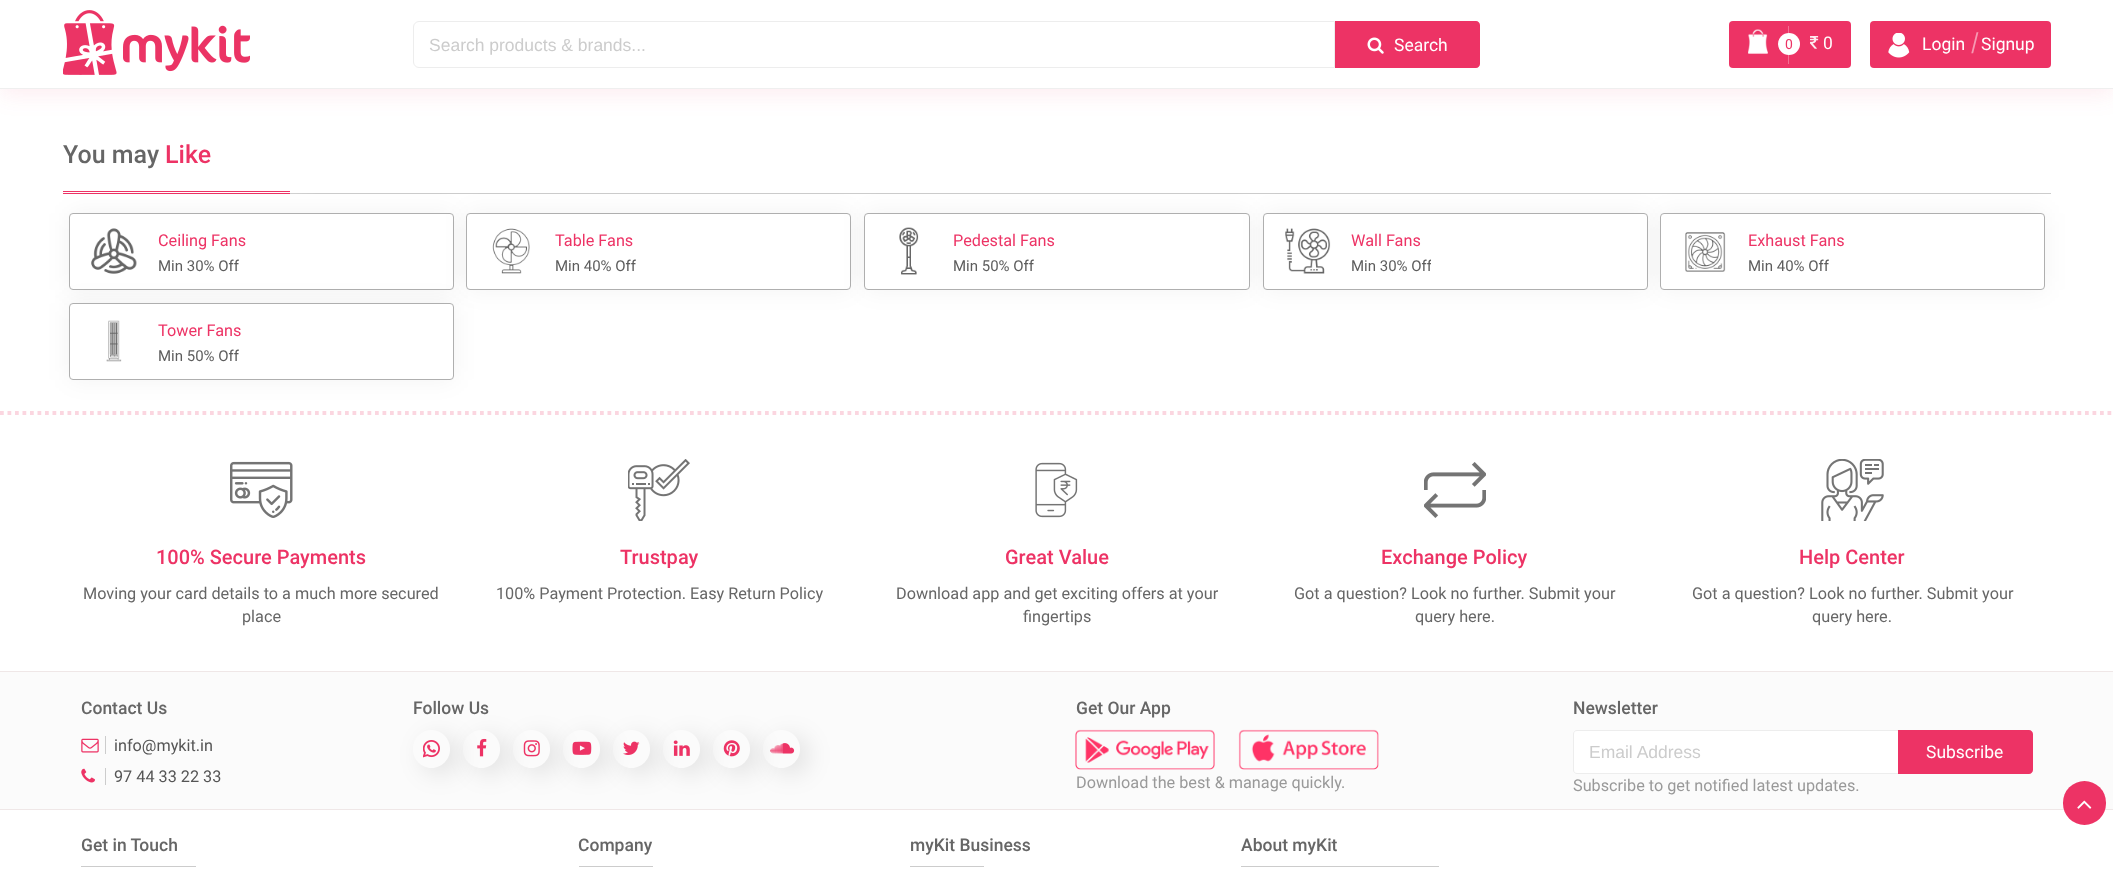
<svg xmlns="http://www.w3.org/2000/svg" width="2113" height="874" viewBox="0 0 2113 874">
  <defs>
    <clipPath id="clip1"><path d="M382 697H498V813H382ZM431.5 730C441.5 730 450 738.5 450 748.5V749.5C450 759.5 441.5 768 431.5 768C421.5 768 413 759.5 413 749.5V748.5C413 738.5 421.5 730 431.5 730Z" clip-rule="evenodd"/></clipPath>
    <clipPath id="clip2"><path d="M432 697H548V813H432ZM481.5 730C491.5 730 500 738.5 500 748.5V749.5C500 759.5 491.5 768 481.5 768C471.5 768 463 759.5 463 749.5V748.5C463 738.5 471.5 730 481.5 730Z" clip-rule="evenodd"/></clipPath>
    <clipPath id="clip3"><path d="M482 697H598V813H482ZM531.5 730C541.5 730 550 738.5 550 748.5V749.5C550 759.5 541.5 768 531.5 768C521.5 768 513 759.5 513 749.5V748.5C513 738.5 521.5 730 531.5 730Z" clip-rule="evenodd"/></clipPath>
    <clipPath id="clip4"><path d="M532 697H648V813H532ZM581.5 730C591.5 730 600 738.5 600 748.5V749.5C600 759.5 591.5 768 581.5 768C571.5 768 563 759.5 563 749.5V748.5C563 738.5 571.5 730 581.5 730Z" clip-rule="evenodd"/></clipPath>
    <clipPath id="clip5"><path d="M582 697H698V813H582ZM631.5 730C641.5 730 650 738.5 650 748.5V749.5C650 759.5 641.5 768 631.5 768C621.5 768 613 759.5 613 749.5V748.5C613 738.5 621.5 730 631.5 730Z" clip-rule="evenodd"/></clipPath>
    <clipPath id="clip6"><path d="M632 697H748V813H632ZM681.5 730C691.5 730 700 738.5 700 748.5V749.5C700 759.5 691.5 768 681.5 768C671.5 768 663 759.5 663 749.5V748.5C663 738.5 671.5 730 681.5 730Z" clip-rule="evenodd"/></clipPath>
    <clipPath id="clip7"><path d="M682 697H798V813H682ZM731.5 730C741.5 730 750 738.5 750 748.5V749.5C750 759.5 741.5 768 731.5 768C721.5 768 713 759.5 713 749.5V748.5C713 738.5 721.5 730 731.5 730Z" clip-rule="evenodd"/></clipPath>
    <clipPath id="clip8"><path d="M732 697H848V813H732ZM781.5 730C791.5 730 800 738.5 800 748.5V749.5C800 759.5 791.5 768 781.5 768C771.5 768 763 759.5 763 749.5V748.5C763 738.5 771.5 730 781.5 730Z" clip-rule="evenodd"/></clipPath>
    <clipPath id="clip9"><path d="M1351 220h80v56H1351z"/></clipPath>
  </defs>
  <rect width="100%" height="100%" fill="#fff"/>
  <path d="M0 4h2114v89H0z" fill="#ed33651a" filter="blur(12.5px)"/>
  <path d="M0 0h2113v88H0z" fill="#fff"/>
  <image x="63" y="10" width="187" height="65" href="img/1.png"/>
  <path d="M419 21.5H1334.5V67.5H419C416 67.5 413.5 65 413.5 62V27C413.5 24 416 21.5 419 21.5Z" fill="none" stroke="#ededed"/>
  <path d="M1335 21H1476C1478 21 1480 23 1480 25V64C1480 66 1478 68 1476 68H1335Z" fill="#ed3365"/>
  <image x="1367" y="37" width="17" height="17" href="img/2.png"/>
  <rect x="1729" y="21" width="122" height="47" rx="4" fill="#ed3365"/>
  <image x="1748" y="29" width="20" height="25" href="img/3.png"/>
  <path d="M1788 26h1v38H1788z" fill="#f27093"/>
  <image x="1810" y="36" width="9" height="13" href="img/4.png"/>
  <circle cx="1789" cy="44" r="11" fill="#fff"/>
  <rect x="1870" y="21" width="181" height="47" rx="4" fill="#ed3365"/>
  <image x="1888" y="33" width="22" height="25" href="img/5.png"/>
  <path d="M0 88h2113v1H0z" fill="#efefef"/>
  <path d="M290 193h1761v1H290z" fill="#ccc"/>
  <path d="M62 191L340 192H363C367 192 367 193 363 193H322L62 194Z" fill="#fff"/>
  <path d="M63 191h227v1H63z" fill="#ed3365"/>
  <path d="M63 193h227v1H63z" fill="#ed3365"/>
  <rect x="69" y="213" width="385" height="77" rx="4" fill="#0000000d" filter="blur(12.5px)"/>
  <rect x="69.5" y="213.5" width="384" height="76" rx="3.5" fill="#fff" stroke="#afafaf"/>
  <image x="91" y="228" width="46" height="46" href="img/6.png"/>
  <rect x="466" y="213" width="385" height="77" rx="4" fill="#0000000d" filter="blur(12.5px)"/>
  <rect x="466.5" y="213.5" width="384" height="76" rx="3.5" fill="#fff" stroke="#afafaf"/>
  <image x="492" y="228" width="38" height="46" href="img/7.png"/>
  <rect x="864" y="213" width="386" height="77" rx="4" fill="#0000000d" filter="blur(12.5px)"/>
  <rect x="864.5" y="213.5" width="385" height="76" rx="3.5" fill="#fff" stroke="#afafaf"/>
  <image x="899" y="227" width="20" height="48" href="img/8.png"/>
  <rect x="1263" y="213" width="385" height="77" rx="4" fill="#0000000d" filter="blur(12.5px)"/>
  <rect x="1263.5" y="213.5" width="384" height="76" rx="3.5" fill="#fff" stroke="#afafaf"/>
  <image x="1285" y="228" width="46" height="46" href="img/9.png"/>
  <rect x="1660" y="213" width="385" height="77" rx="4" fill="#0000000d" filter="blur(12.5px)"/>
  <rect x="1660.5" y="213.5" width="384" height="76" rx="3.5" fill="#fff" stroke="#afafaf"/>
  <image x="1685" y="232" width="41" height="40" href="img/10.png"/>
  <path d="M0 413H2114" fill="none" stroke="#fbd6e0" stroke-width="3.8" stroke-dasharray="3.75 3.75"/>
  <rect x="69" y="303" width="385" height="77" rx="4" fill="#0000000d" filter="blur(12.5px)"/>
  <rect x="69.5" y="303.5" width="384" height="76" rx="3.5" fill="#fff" stroke="#afafaf"/>
  <image x="106" y="320" width="16" height="42" href="img/11.png"/>
  <image x="230" y="461" width="63" height="57" href="img/12.png"/>
  <image x="628" y="459" width="62" height="62" href="img/13.png"/>
  <image x="1035" y="462" width="43" height="56" href="img/14.png"/>
  <image x="1424" y="462" width="62" height="56" href="img/15.png"/>
  <image x="1821" y="459" width="63" height="62" href="img/16.png"/>
  <path d="M0 672h2113v137H0z" fill="#fbfbfb"/>
  <path d="M0 671h2113v1H0z" fill="#efe7e7"/>
  <path d="M0 809h2113v1H0z" fill="#efe7e7"/>
  <path d="M105 736h1v18H105z" fill="#ccc"/>
  <image x="81" y="738" width="18" height="15" href="img/17.png"/>
  <path d="M105 768h1v17H105z" fill="#ccc"/>
  <image x="81" y="768" width="14" height="15" href="img/18.png"/>
  <g clip-path="url(#clip1)">
    <rect x="421" y="736" width="38" height="38" rx="19" fill="#0000001a" filter="blur(12.5px)"/>
  </g>
  <image x="423" y="740" width="17" height="18" href="img/19.png"/>
  <g clip-path="url(#clip2)">
    <rect x="471" y="736" width="38" height="38" rx="19" fill="#0000001a" filter="blur(12.5px)"/>
  </g>
  <image x="477" y="738" width="10" height="19" href="img/20.png"/>
  <g clip-path="url(#clip3)">
    <rect x="521" y="736" width="38" height="38" rx="19" fill="#0000001a" filter="blur(12.5px)"/>
  </g>
  <image x="523" y="740" width="17" height="17" href="img/21.png"/>
  <g clip-path="url(#clip4)">
    <rect x="571" y="736" width="38" height="38" rx="19" fill="#0000001a" filter="blur(12.5px)"/>
  </g>
  <image x="572" y="741" width="20" height="14" href="img/22.png"/>
  <g clip-path="url(#clip5)">
    <rect x="621" y="736" width="38" height="38" rx="19" fill="#0000001a" filter="blur(12.5px)"/>
  </g>
  <image x="623" y="741" width="17" height="14" href="img/23.png"/>
  <g clip-path="url(#clip6)">
    <rect x="671" y="736" width="38" height="38" rx="19" fill="#0000001a" filter="blur(12.5px)"/>
  </g>
  <image x="673" y="740" width="17" height="16" href="img/24.png"/>
  <g clip-path="url(#clip7)">
    <rect x="721" y="736" width="38" height="38" rx="19" fill="#0000001a" filter="blur(12.5px)"/>
  </g>
  <image x="723" y="740" width="17" height="17" href="img/25.png"/>
  <g clip-path="url(#clip8)">
    <rect x="771" y="736" width="38" height="38" rx="19" fill="#0000001a" filter="blur(12.5px)"/>
  </g>
  <image x="770" y="743" width="25" height="11" href="img/26.png"/>
  <image x="1075" y="729" width="140" height="41" href="img/27.png"/>
  <image x="1238" y="729" width="141" height="41" href="img/28.png"/>
  <path d="M1577 730.5H1898.5V773.5H1577C1575 773.5 1573.5 772 1573.5 770V734C1573.5 732 1575 730.5 1577 730.5Z" fill="#fff" stroke="#ededed"/>
  <path d="M1898 730H2029C2031 730 2033 732 2033 734V770C2033 772 2031 774 2029 774H1898Z" fill="#ed3365"/>
  <rect x="2063" y="781" width="43" height="44" rx="21.5" fill="#ed3365"/>
  <image x="2077" y="800" width="15" height="9" href="img/29.png"/>
  <path d="M81 866h115v1H81z" fill="#ccc"/>
  <path d="M579 866h74v1H579z" fill="#ccc"/>
  <path d="M910 866h74v1H910z" fill="#ccc"/>
  <path d="M1241 866h198v1H1241z" fill="#ccc"/>
  <text x="429" y="51" font-family="Liberation Sans" font-size="17.5" fill="#ccc">Search products &amp; brands...</text>
  <g font-family="Roboto" font-size="17.5" fill="#fff">
    <text x="1394" y="51">Search</text>
    <text x="1823" y="49">0</text>
  </g>
  <text x="1785" y="49" font-family="Roboto" font-size="14" fill="#ed3365">0</text>
  <text x="1922" y="50" font-family="Roboto" font-size="17.5" fill="#fff">Login</text>
  <text x="1970" y="50" font-family="Roboto" font-size="25" font-style="italic" fill="#f699b2">|</text>
  <text x="1981" y="50" font-family="Roboto" font-size="17.5" fill="#fff">Signup</text>
  <text x="63" y="163" font-family="Roboto" font-size="25" font-weight="500" fill="#666">You may</text>
  <text x="165" y="163" font-family="Roboto" font-size="25" font-weight="500" fill="#ed3365">Like</text>
  <text x="158" y="246" font-family="Roboto" font-size="16.25" fill="#ed3365">Ceiling Fans</text>
  <text x="158" y="271" font-family="Roboto" font-size="15" fill="#5d5d5d">Min 30% Off</text>
  <text x="555" y="246" font-family="Roboto" font-size="16.25" fill="#ed3365">Table Fans</text>
  <text x="555" y="271" font-family="Roboto" font-size="15" fill="#5d5d5d">Min 40% Off</text>
  <text x="953" y="246" font-family="Roboto" font-size="16.25" fill="#ed3365">Pedestal Fans</text>
  <text x="953" y="271" font-family="Roboto" font-size="15" fill="#5d5d5d">Min 50% Off</text>
  <text x="1351" y="246" font-family="Roboto" font-size="16.25" fill="#ed3365">Wall Fans</text>
  <g clip-path="url(#clip9)">
    <text x="1351" y="271" font-family="Roboto" font-size="15" fill="#5d5d5d">Min 30% Off</text>
  </g>
  <text x="1748" y="246" font-family="Roboto" font-size="16.25" fill="#ed3365">Exhaust Fans</text>
  <text x="1748" y="271" font-family="Roboto" font-size="15" fill="#5d5d5d">Min 40% Off</text>
  <text x="158" y="336" font-family="Roboto" font-size="16.25" fill="#ed3365">Tower Fans</text>
  <text x="158" y="361" font-family="Roboto" font-size="15" fill="#5d5d5d">Min 50% Off</text>
  <text x="156" y="564" font-family="Roboto" font-size="20" font-weight="500" fill="#ed3365">100% Secure Payments</text>
  <g font-family="Roboto" font-size="16.25" fill="#666">
    <text x="83" y="599">Moving your card details to a much more secured</text>
    <text x="242" y="622">place</text>
  </g>
  <text x="620" y="564" font-family="Roboto" font-size="20" font-weight="500" fill="#ed3365">Trustpay</text>
  <text x="496" y="599" font-family="Roboto" font-size="16.25" fill="#666">100% Payment Protection. Easy Return Policy</text>
  <text x="1005" y="564" font-family="Roboto" font-size="20" font-weight="500" fill="#ed3365">Great Value</text>
  <g font-family="Roboto" font-size="16.25" fill="#666">
    <text x="896" y="599">Download app and get exciting offers at your</text>
    <text x="1023" y="622">fingertips</text>
  </g>
  <text x="1381" y="564" font-family="Roboto" font-size="20" font-weight="500" fill="#ed3365">Exchange Policy</text>
  <g font-family="Roboto" font-size="16.25" fill="#666">
    <text x="1294" y="599">Got a question? Look no further. Submit your</text>
    <text x="1415" y="622">query here.</text>
  </g>
  <text x="1799" y="564" font-family="Roboto" font-size="20" font-weight="500" fill="#ed3365">Help Center</text>
  <g font-family="Roboto" font-size="16.25" fill="#666">
    <text x="1692" y="599">Got a question? Look no further. Submit your</text>
    <text x="1812" y="622">query here.</text>
  </g>
  <text x="81" y="714" font-family="Roboto" font-size="17.5" font-weight="500" fill="#666">Contact Us</text>
  <g font-family="Roboto" font-size="16.25" fill="#555">
    <text x="114" y="751">info@mykit.in</text>
    <text x="114" y="782">97 44 33 22 33</text>
  </g>
  <g font-family="Roboto" font-size="17.5" font-weight="500" fill="#666">
    <text x="413" y="714">Follow Us</text>
    <text x="1076" y="714">Get Our App</text>
  </g>
  <text x="1076" y="788" font-family="Roboto" font-size="16.25" fill="#999">Download the best &amp; manage quickly.</text>
  <text x="1573" y="714" font-family="Roboto" font-size="17.5" font-weight="500" fill="#666">Newsletter</text>
  <text x="1589" y="758" font-family="Liberation Sans" font-size="17.5" fill="#ccc">Email Address</text>
  <text x="1926" y="758" font-family="Roboto" font-size="17.5" fill="#fff">Subscribe</text>
  <text x="1573" y="791" font-family="Roboto" font-size="16.25" fill="#999">Subscribe to get notified latest updates.</text>
  <g font-family="Roboto" font-size="17.5" font-weight="500" fill="#666">
    <text x="81" y="851">Get in Touch</text>
    <text x="578" y="851">Company</text>
    <text x="910" y="851">myKit Business</text>
    <text x="1241" y="851">About myKit</text>
  </g>
</svg>
